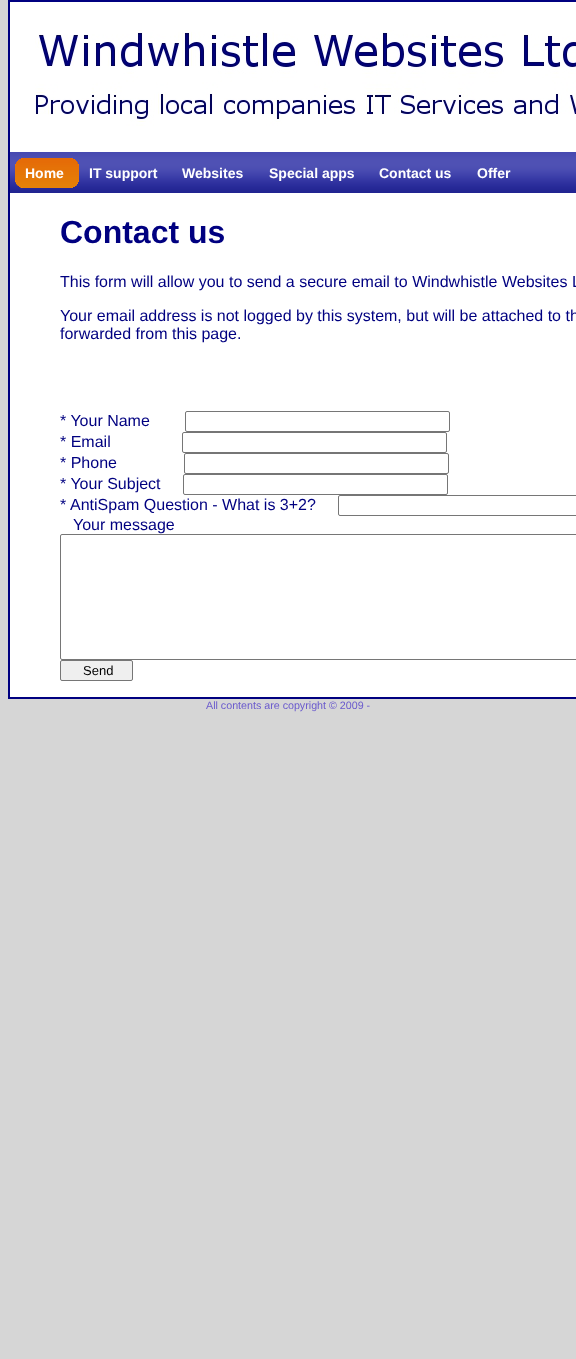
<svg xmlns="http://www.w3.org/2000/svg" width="576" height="1359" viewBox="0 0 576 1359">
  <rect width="100%" height="100%" fill="#d6d6d6"/>
  <path d="M9 1h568v697H9z" fill="#fff" stroke="#000080" stroke-width="2"/>
  <image x="35" y="30" width="541" height="96" href="img/1.png"/>
  <image x="10" y="152" width="566" height="41" href="img/2.png"/>
  <image x="70" y="158" width="9" height="30" href="img/3.png"/>
  <image x="15" y="158" width="55" height="30" href="img/4.png"/>
  <rect x="185.5" y="411.5" width="264" height="20" rx="1.5" fill="none" stroke="#767676"/>
  <rect x="182.5" y="432.5" width="264" height="20" rx="1.5" fill="none" stroke="#767676"/>
  <rect x="184.5" y="453.5" width="264" height="20" rx="1.5" fill="none" stroke="#767676"/>
  <rect x="183.5" y="474.5" width="264" height="20" rx="1.5" fill="none" stroke="#767676"/>
  <rect x="338.5" y="495.5" width="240" height="20" rx="1.5" fill="none" stroke="#767676"/>
  <rect x="60.5" y="534.5" width="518" height="125" rx="1.5" fill="none" stroke="#767676"/>
  <rect x="60.5" y="660.5" width="72" height="20" rx="1.5" fill="#efefef" stroke="#767676"/>
  <g font-family="Liberation Sans" font-size="14" font-weight="bold" fill="#fff">
    <text x="182" y="178">Websites</text>
    <text x="269" y="178">Special apps</text>
    <text x="477" y="178">Offer</text>
    <text x="25" y="178">Home</text>
    <text x="89" y="178">IT support</text>
    <text x="379" y="178">Contact us</text>
  </g>
  <text x="60" y="243" font-family="Liberation Sans" font-size="32" font-weight="bold" fill="#000080">Contact us</text>
  <g font-family="Liberation Sans" font-size="16" fill="#000080">
    <text x="60" y="287">This form will allow you to send a secure email to Windwhistle Websites L</text>
    <text x="60" y="321">Your email address is not logged by this system, but will be attached to th</text>
    <text x="60" y="339">forwarded from this page.</text>
    <text x="60" y="426">* Your Name</text>
    <text x="60" y="447">* Email</text>
    <text x="60" y="468">* Phone</text>
    <text x="60" y="489">* Your Subject</text>
    <text x="60" y="510">*</text>
    <text x="70" y="510">AntiSpam Question - What is 3+2?</text>
    <text x="73" y="530">Your message</text>
  </g>
  <text x="83" y="675" font-family="Liberation Sans" font-size="13" fill="#000">Send</text>
  <text x="206" y="709" font-family="Liberation Sans" font-size="10.7" fill="#6a5acd">All contents are copyright © 2009 -</text>
</svg>
